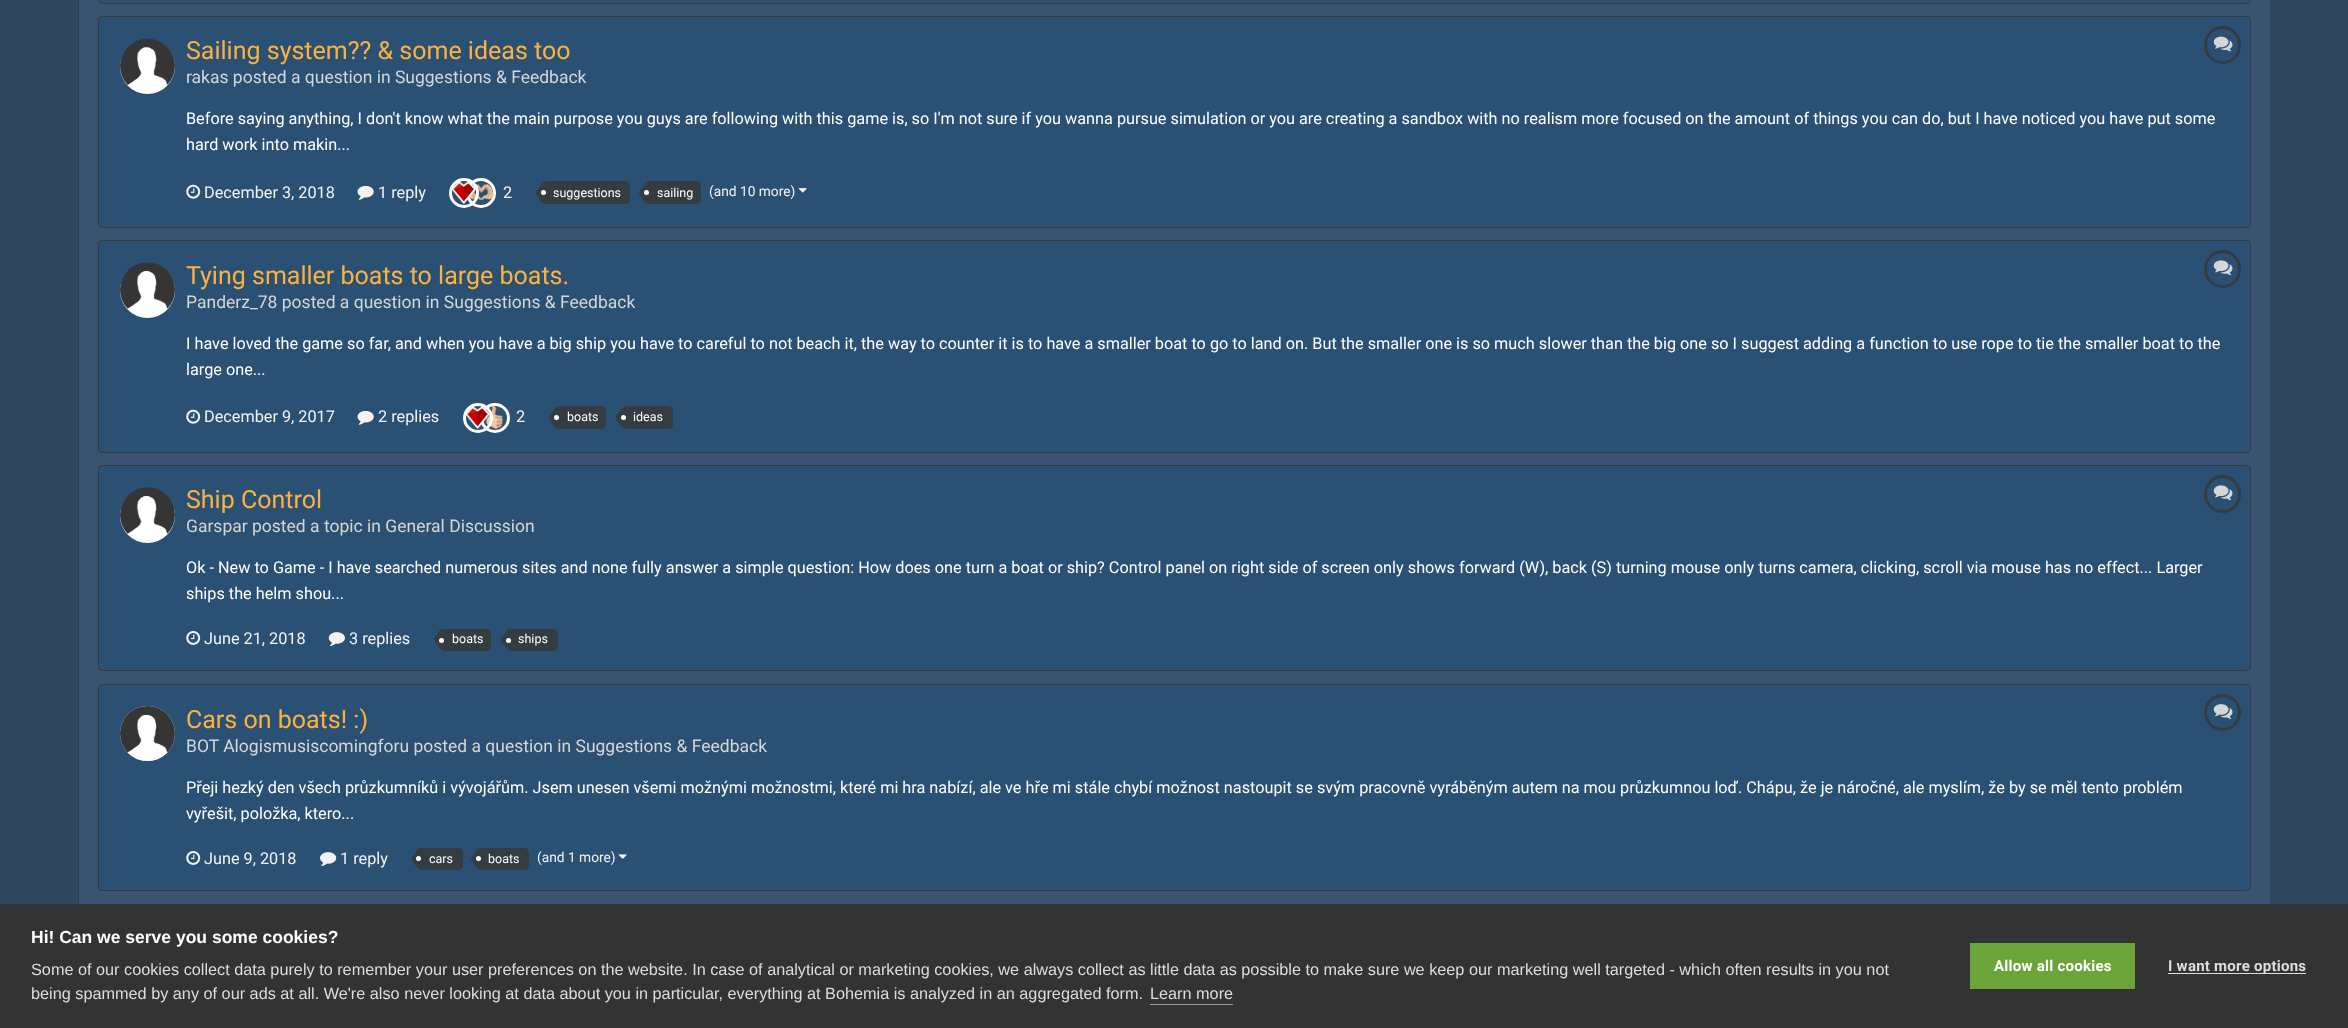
<svg xmlns="http://www.w3.org/2000/svg" width="2348" height="1028" viewBox="0 0 2348 1028">
  <rect width="100%" height="100%" fill="#2f475f"/>
  <path d="M78.5 -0.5h2192v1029H78.5z" fill="none" stroke="#283f54"/>
  <path d="M79 0h2191v904H79z" fill="#385471"/>
  <rect x="98.5" y="-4.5" width="2152" height="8" rx="3.5" fill="#2a5173" stroke="#3a3a3a"/>
  <rect x="98.5" y="16.5" width="2152" height="211" rx="3.5" fill="#2a5173" stroke="#3a3a3a"/>
  <circle cx="147.5" cy="66.5" r="27.5" fill="#fff"/>
  <image x="120" y="38" width="55" height="55" href="img/1.png"/>
  <rect x="2205.5" y="27.5" width="34" height="35" rx="17" fill="none" stroke="#353c41" stroke-width="3"/>
  <image x="2213" y="36" width="20" height="16" href="img/2.png"/>
  <image x="186" y="184" width="15" height="15" href="img/3.png"/>
  <image x="357" y="185" width="17" height="15" href="img/4.png"/>
  <circle cx="481" cy="193" r="13.5" fill="none" stroke="#fff" stroke-width="3"/>
  <image x="469" y="183" width="25" height="17" href="img/6.png"/>
  <circle cx="464" cy="193" r="13.5" fill="none" stroke="#fff" stroke-width="3"/>
  <image x="452" y="181" width="24" height="23" href="img/5.png"/>
  <path d="M545 181H625C628 181 630 183 630 186V199C630 202 628 204 625 204H545Z" fill="#353c41"/>
  <path d="M537.5 196.5L535.5 193.5V193H545.5V193.5V204C541.5 204 539.5 199.5 537.5 196.5ZM545.5 193H545.5ZM537.5 189.5C540 187 541.5 182 545.5 182V192.5V193H535.5C535.5 191.5 537 190.5 537.5 189.5ZM545.5 193H545.5Z" fill="#353c41" fill-rule="evenodd"/>
  <circle cx="543.5" cy="192.5" r="2.5" fill="#fff"/>
  <path d="M648 181H696C699 181 701 183 701 186V199C701 202 699 204 696 204H648Z" fill="#353c41"/>
  <path d="M649 204C645 204 642.5 199 640.5 196L639 193H649ZM649 193H649ZM640.5 189.5C643.5 187 644.5 182 649 182V193H639C639 192 640 190.5 640.5 189.5ZM649 193H649Z" fill="#353c41" fill-rule="evenodd"/>
  <circle cx="646.5" cy="192.5" r="2.5" fill="#fff"/>
  <image x="798" y="188" width="9" height="5" href="img/7.png"/>
  <rect x="98.5" y="240.5" width="2152" height="212" rx="3.5" fill="#2a5173" stroke="#3a3a3a"/>
  <circle cx="147.5" cy="290.5" r="27.5" fill="#fff"/>
  <image x="120" y="262" width="55" height="55" href="img/8.png"/>
  <rect x="2205.5" y="251.5" width="34" height="35" rx="17" fill="none" stroke="#353c41" stroke-width="3"/>
  <image x="2213" y="260" width="20" height="16" href="img/9.png"/>
  <image x="186" y="409" width="15" height="15" href="img/3.png"/>
  <image x="357" y="410" width="17" height="15" href="img/4.png"/>
  <circle cx="495" cy="418" r="13.5" fill="none" stroke="#fff" stroke-width="3"/>
  <image x="486" y="405" width="17" height="24" href="img/11.png"/>
  <circle cx="478" cy="418" r="13.5" fill="none" stroke="#fff" stroke-width="3"/>
  <image x="466" y="406" width="24" height="23" href="img/10.png"/>
  <path d="M558 406H601C604 406 606 408 606 411V424C606 427 604 429 601 429H558Z" fill="#353c41"/>
  <path d="M559 428.5C554.5 428.5 552.5 423.5 550.5 420.5L549 417.5H559L558.5 418H559Z" fill="#353c41"/>
  <path d="M553.5 410C555 408 556.5 406.5 559 406.5V417H558.5L559 417.5H549C549 416 552.5 411.5 553.5 410ZM559 417.5H559Z" fill="#353c41" fill-rule="evenodd"/>
  <circle cx="556.5" cy="417.5" r="2.5" fill="#fff"/>
  <path d="M625 406H668C671 406 673 408 673 411V424C673 427 671 429 668 429H625Z" fill="#353c41"/>
  <path d="M615.5 418V417.5H626L625.5 418H626V428.5C621 428.5 617.5 421.5 615.5 418Z" fill="#353c41"/>
  <path d="M618 413.5C620.5 411 621.5 406.5 626 406.5V417H625.5L626 417.5H615.5C615.5 416 617 415 618 413.5Z" fill="#353c41"/>
  <circle cx="623.5" cy="417.5" r="2.5" fill="#fff"/>
  <rect x="98.5" y="465.5" width="2152" height="205" rx="3.5" fill="#2a5173" stroke="#3a3a3a"/>
  <circle cx="147.5" cy="515.5" r="27.5" fill="#fff"/>
  <image x="120" y="487" width="55" height="55" href="img/8.png"/>
  <rect x="2205.5" y="476.5" width="34" height="35" rx="17" fill="none" stroke="#353c41" stroke-width="3"/>
  <image x="2213" y="485" width="20" height="16" href="img/9.png"/>
  <image x="186" y="631" width="15" height="14" href="img/12.png"/>
  <image x="328" y="632" width="17" height="14" href="img/13.png"/>
  <path d="M443 629H486C489 629 491 631 491 634V646C491 649 489 651 486 651H443Z" fill="#353c41"/>
  <path d="M444 650.5C440 650.5 437.5 645.5 435.5 642.5L434 639.5H444ZM444 639.5H444Z" fill="#353c41" fill-rule="evenodd"/>
  <path d="M439.5 630.5C441 629.5 442.5 628.5 444 628.5V639.5H434V639L436.5 635.5ZM444 639.5H444Z" fill="#353c41" fill-rule="evenodd"/>
  <circle cx="441.5" cy="640.5" r="2.5" fill="#fff"/>
  <path d="M510 629H553C556 629 558 631 558 634V646C558 649 556 651 553 651H510Z" fill="#353c41"/>
  <path d="M500.5 640V639.5H511L510.5 640H511V650.5C506.5 650.5 502.5 643 500.5 640Z" fill="#353c41"/>
  <path d="M502.5 636.5C505 633.5 506.5 628.5 511 628.5V639H510.5L511 639.5H500.5Z" fill="#353c41"/>
  <circle cx="508.5" cy="640.5" r="2.5" fill="#fff"/>
  <rect x="98.5" y="684.5" width="2152" height="206" rx="3.5" fill="#2a5173" stroke="#3a3a3a"/>
  <circle cx="147.5" cy="733.5" r="27.5" fill="#fff"/>
  <image x="120" y="706" width="55" height="55" href="img/14.png"/>
  <circle cx="2222.5" cy="712.5" r="17" fill="none" stroke="#353c41" stroke-width="3"/>
  <image x="2213" y="704" width="20" height="15" href="img/15.png"/>
  <image x="186" y="851" width="15" height="14" href="img/12.png"/>
  <image x="320" y="852" width="17" height="14" href="img/16.png"/>
  <path d="M420 848H458C461 848 463 850 463 853V865C463 868 461 870 458 870H420Z" fill="#353c41"/>
  <path d="M415.5 865.5L411.5 859H421.5V870C419 870 417 867.5 415.5 865.5ZM421.5 859H421.5ZM413.5 855.5C416 853 417 848 421.5 848V859H411.5C411.5 858 412.5 856.5 413.5 855.5ZM421.5 859H421.5Z" fill="#353c41" fill-rule="evenodd"/>
  <circle cx="418.5" cy="858.5" r="2.5" fill="#fff"/>
  <path d="M480 848H524C527 848 529 850 529 853V865C529 868 527 870 524 870H480Z" fill="#353c41"/>
  <path d="M470.5 859H481L480.5 859.5H481V870C476.5 870 473 862.5 470.5 859ZM475 852.5C476.5 850 478 848 481 848V858.5H480.5L481 859H470.5Z" fill="#353c41"/>
  <circle cx="478.5" cy="858.5" r="2.5" fill="#fff"/>
  <image x="618" y="854" width="9" height="5" href="img/17.png"/>
  <path d="M0 904h2348v124H0z" fill="#333"/>
  <path d="M1150 1004h83v1H1150z" fill="#999"/>
  <path d="M1970 943h165v46H1970z" fill="#6ba539"/>
  <path d="M2168 973h138v1H2168z" fill="#ddd"/>
  <text x="186" y="59" font-family="Roboto" font-size="25" fill="#ffb140">Sailing system?? &amp; some ideas too</text>
  <text x="186" y="83" font-family="Roboto" font-size="17.5" fill="#d6d6d6">rakas posted a question in Suggestions &amp; Feedback</text>
  <g font-family="Roboto" font-size="16.25" fill="#fff">
    <text x="186" y="124">Before saying anything, I don't know what the main purpose you guys are following with this game is, so I'm not sure if you wanna pursue simulation or you are creating a sandbox with no realism more focused on the amount of things you can do, but I have noticed you have put some</text>
    <text x="186" y="150">hard work into makin...</text>
  </g>
  <g font-family="Roboto" font-size="16.25" fill="#f3f3f3">
    <text x="204" y="198">December 3, 2018</text>
    <text x="378" y="198">1 reply</text>
    <text x="503" y="198">2</text>
  </g>
  <g font-family="Roboto" font-size="12.5" fill="#fff">
    <text x="553" y="197">suggestions</text>
    <text x="657" y="197">sailing</text>
  </g>
  <text x="709" y="196" font-family="Roboto" font-size="13.75" fill="#f3f3f3">(and 10 more)</text>
  <text x="186" y="284" font-family="Roboto" font-size="25" fill="#ffb140">Tying smaller boats to large boats.</text>
  <text x="186" y="308" font-family="Roboto" font-size="17.5" fill="#d6d6d6">Panderz_78 posted a question in Suggestions &amp; Feedback</text>
  <g font-family="Roboto" font-size="16.25" fill="#fff">
    <text x="186" y="349">I have loved the game so far, and when you have a big ship you have to careful to not beach it, the way to counter it is to have a smaller boat to go to land on. But the smaller one is so much slower than the big one so I suggest adding a function to use rope to tie the smaller boat to the</text>
    <text x="186" y="375">large one...</text>
  </g>
  <g font-family="Roboto" font-size="16.25" fill="#f3f3f3">
    <text x="204" y="422">December 9, 2017</text>
    <text x="378" y="422">2 replies</text>
    <text x="516" y="422">2</text>
  </g>
  <g font-family="Roboto" font-size="12.5" fill="#fff">
    <text x="567" y="421">boats</text>
    <text x="633" y="421">ideas</text>
  </g>
  <text x="186" y="508" font-family="Roboto" font-size="25" fill="#ffb140">Ship Control</text>
  <text x="186" y="532" font-family="Roboto" font-size="17.5" fill="#d6d6d6">Garspar posted a topic in General Discussion</text>
  <g font-family="Roboto" font-size="16.25" fill="#fff">
    <text x="186" y="573">Ok - New to Game - I have searched numerous sites and none fully answer a simple question: How does one turn a boat or ship? Control panel on right side of screen only shows forward (W), back (S) turning mouse only turns camera, clicking, scroll via mouse has no effect... Larger</text>
    <text x="186" y="599">ships the helm shou...</text>
  </g>
  <g font-family="Roboto" font-size="16.25" fill="#f3f3f3">
    <text x="204" y="644">June 21, 2018</text>
    <text x="349" y="644">3 replies</text>
  </g>
  <g font-family="Roboto" font-size="12.5" fill="#fff">
    <text x="452" y="643">boats</text>
    <text x="518" y="643">ships</text>
  </g>
  <text x="186" y="728" font-family="Roboto" font-size="25" fill="#ffb140">Cars on boats! :)</text>
  <text x="186" y="752" font-family="Roboto" font-size="17.5" fill="#d6d6d6">BOT Alogismusiscomingforu posted a question in Suggestions &amp; Feedback</text>
  <g font-family="Roboto" font-size="16.25" fill="#fff">
    <text x="186" y="793">Přeji hezký den všech průzkumníků i vývojářům. Jsem unesen všemi možnými možnostmi, které mi hra nabízí, ale ve hře mi stále chybí možnost nastoupit se svým pracovně vyráběným autem na mou průzkumnou loď. Chápu, že je náročné, ale myslím, že by se měl tento problém</text>
    <text x="186" y="819">vyřešit, položka, ktero...</text>
  </g>
  <g font-family="Roboto" font-size="16.25" fill="#f3f3f3">
    <text x="204" y="864">June 9, 2018</text>
    <text x="340" y="864">1 reply</text>
  </g>
  <g font-family="Roboto" font-size="12.5" fill="#fff">
    <text x="429" y="863">cars</text>
    <text x="488" y="863">boats</text>
  </g>
  <text x="537" y="862" font-family="Roboto" font-size="13.75" fill="#f3f3f3">(and 1 more)</text>
  <text x="31" y="943" font-family="Liberation Sans" font-size="17.5" font-weight="bold" fill="#fff">Hi! Can we serve you some cookies?</text>
  <g font-family="Liberation Sans" font-size="16.25" fill="#ddd">
    <text x="31" y="975">Some of our cookies collect data purely to remember your user preferences on the website. In case of analytical or marketing cookies, we always collect as little data as possible to make sure we keep our marketing well targeted - which often results in you not</text>
    <text x="31" y="999">being spammed by any of our ads at all. We're also never looking at data about you in particular, everything at Bohemia is analyzed in an aggregated form.</text>
    <text x="1150" y="999">Learn more</text>
  </g>
  <text x="1994" y="971" font-family="Roboto" font-size="15" font-weight="bold" letter-spacing="0.25" fill="#fff">Allow all cookies</text>
  <text x="2168" y="971" font-family="Roboto" font-size="15" font-weight="bold" letter-spacing="0.25" fill="#ddd">I want more options</text>
</svg>
